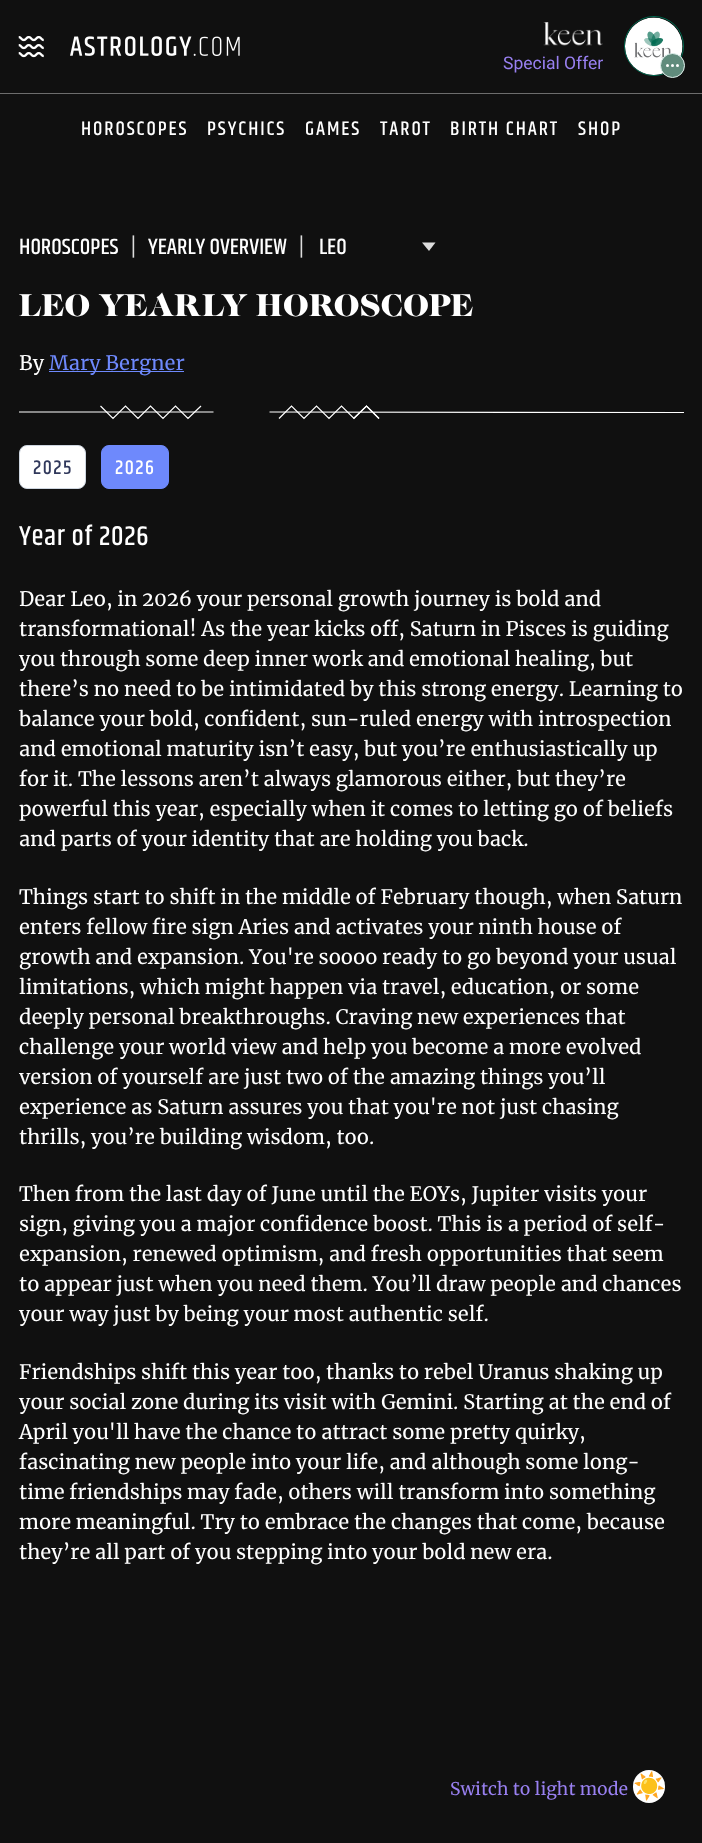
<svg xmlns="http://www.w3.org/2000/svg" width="702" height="1843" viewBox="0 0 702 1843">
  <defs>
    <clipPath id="clip1"><path d="M19 405h665v15H19z"/></clipPath>
  </defs>
  <rect width="100%" height="100%" fill="#101010"/>
  <path d="M0 93h702v1H0z" fill="#6d6d6d"/>
  <image x="18" y="36" width="26" height="22" href="img/1.png"/>
  <image x="70" y="36" width="170" height="20" href="img/2.png"/>
  <image x="543" y="22" width="60" height="24" href="img/3.png"/>
  <circle cx="654" cy="46" r="29.5" fill="none" stroke="#006a50"/>
  <image x="625" y="17" width="58" height="58" href="img/4.png"/>
  <circle cx="672.5" cy="65.5" r="12" fill="#608b7c" stroke="#e2f1ee"/>
  <circle cx="667.5" cy="65.5" r="1.5" fill="#fff"/>
  <circle cx="672.5" cy="65.5" r="1.5" fill="#fff"/>
  <circle cx="677.5" cy="65.5" r="1.5" fill="#fff"/>
  <path d="M429 251L435.5 242.5H422Z" fill="#ddd"/>
  <path d="M49 371h135v1H49z" fill="#6e89fc"/>
  <path d="M279 418.5L291.5 406L304 418.5L316.5 406L329 418.5L341.5 406L354 418.5L366.5 406L379 418.5" fill="none" stroke="#fff" stroke-width="1.2"/>
  <path d="M201 406L188 418.5L175.5 406L163 418.5L150.5 406L138 418.5L125.5 406L113 418.5L100.5 406" fill="none" stroke="#fff" stroke-width="1.2"/>
  <g clip-path="url(#clip1)">
    <path d="M353.5 418.5L366.5 406L379 418.5M269.5 412L693 412.5M213.5 412H19" fill="none" stroke="#fff" stroke-width="1.2"/>
  </g>
  <rect x="19.5" y="445.5" width="66" height="43" rx="7.5" fill="#fff" stroke="#ced6e0"/>
  <rect x="101.5" y="445.5" width="67" height="43" rx="7.5" fill="#6e89fc" stroke="#6e89fc"/>
  <rect x="633" y="1770" width="32" height="33" rx="16" fill="#fff"/>
  <text x="503" y="69" font-family="Roboto" font-size="17.5" fill="#9980f1">Special Offer</text>
  <g font-family="Khand" font-size="20" font-weight="500" letter-spacing="1.9" fill="#fff">
    <text x="81" y="135">HOROSCOPES</text>
    <text x="207" y="135">PSYCHICS</text>
    <text x="305" y="135">GAMES</text>
    <text x="380" y="135">TAROT</text>
    <text x="450" y="135">BIRTH CHART</text>
    <text x="578" y="135">SHOP</text>
  </g>
  <text x="19" y="254" font-family="Khand" font-size="22.5" font-weight="500" fill="#fff">HOROSCOPES</text>
  <text x="131" y="254" font-family="Khand" font-size="22.5" font-weight="500" fill="#ddd">|</text>
  <text x="148" y="254" font-family="Khand" font-size="22.5" font-weight="500" fill="#fff">YEARLY OVERVIEW</text>
  <text x="299" y="254" font-family="Khand" font-size="22.5" font-weight="500" fill="#ddd">|</text>
  <text x="319" y="254" font-family="Khand" font-size="22.5" font-weight="500" fill="#fff">LEO</text>
  <text x="19" y="316" font-family="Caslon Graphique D" font-size="32.5" letter-spacing="0.7" fill="#fff">LEO YEARLY HOROSCOPE</text>
  <text x="19" y="370" font-family="Merriweather" font-size="20" fill="#fff">By</text>
  <text x="49" y="370" font-family="Merriweather" font-size="20" fill="#6e89fc">Mary Bergner</text>
  <text x="33" y="474" font-family="Khand" font-size="20" font-weight="500" letter-spacing="1.5" fill="#30385b">2025</text>
  <text x="115" y="474" font-family="Khand" font-size="20" font-weight="500" letter-spacing="1.5" fill="#fff">2026</text>
  <text x="19" y="545" font-family="Khand" font-size="27.5" font-weight="500" letter-spacing="0.75" fill="#fff">Year of 2026</text>
  <g font-family="Merriweather" font-size="20" fill="#fff">
    <text x="19" y="606">Dear Leo, in 2026 your personal growth journey is bold and</text>
    <text x="19" y="636">transformational! As the year kicks off, Saturn in Pisces is guiding</text>
    <text x="19" y="666">you through some deep inner work and emotional healing, but</text>
    <text x="19" y="696">there’s no need to be intimidated by this strong energy. Learning to</text>
    <text x="19" y="726">balance your bold, confident, sun-ruled energy with introspection</text>
    <text x="19" y="756">and emotional maturity isn’t easy, but you’re enthusiastically up</text>
    <text x="19" y="786">for it. The lessons aren’t always glamorous either, but they’re</text>
    <text x="19" y="816">powerful this year, especially when it comes to letting go of beliefs</text>
    <text x="19" y="846">and parts of your identity that are holding you back.</text>
    <text x="19" y="904">Things start to shift in the middle of February though, when Saturn</text>
    <text x="19" y="934">enters fellow fire sign Aries and activates your ninth house of</text>
    <text x="19" y="964">growth and expansion. You're soooo ready to go beyond your usual</text>
    <text x="19" y="994">limitations, which might happen via travel, education, or some</text>
    <text x="19" y="1024">deeply personal breakthroughs. Craving new experiences that</text>
    <text x="19" y="1054">challenge your world view and help you become a more evolved</text>
    <text x="19" y="1084">version of yourself are just two of the amazing things you’ll</text>
    <text x="19" y="1114">experience as Saturn assures you that you're not just chasing</text>
    <text x="19" y="1144">thrills, you’re building wisdom, too.</text>
    <text x="19" y="1201">Then from the last day of June until the EOYs, Jupiter visits your</text>
    <text x="19" y="1231">sign, giving you a major confidence boost. This is a period of self-</text>
    <text x="19" y="1261">expansion, renewed optimism, and fresh opportunities that seem</text>
    <text x="19" y="1291">to appear just when you need them. You’ll draw people and chances</text>
    <text x="19" y="1321">your way just by being your most authentic self.</text>
    <text x="19" y="1379">Friendships shift this year too, thanks to rebel Uranus shaking up</text>
    <text x="19" y="1409">your social zone during its visit with Gemini. Starting at the end of</text>
    <text x="19" y="1439">April you'll have the chance to attract some pretty quirky,</text>
    <text x="19" y="1469">fascinating new people into your life, and although some long-</text>
    <text x="19" y="1499">time friendships may fade, others will transform into something</text>
    <text x="19" y="1529">more meaningful. Try to embrace the changes that come, because</text>
    <text x="19" y="1559">they’re all part of you stepping into your bold new era.</text>
  </g>
  <text x="450" y="1795" font-family="Merriweather" font-size="17.5" fill="#9980f1">Switch to light mode</text>
  <text x="633" y="1795" font-family="Noto Color Emoji" font-size="26" fill="#000">☀️</text>
</svg>
